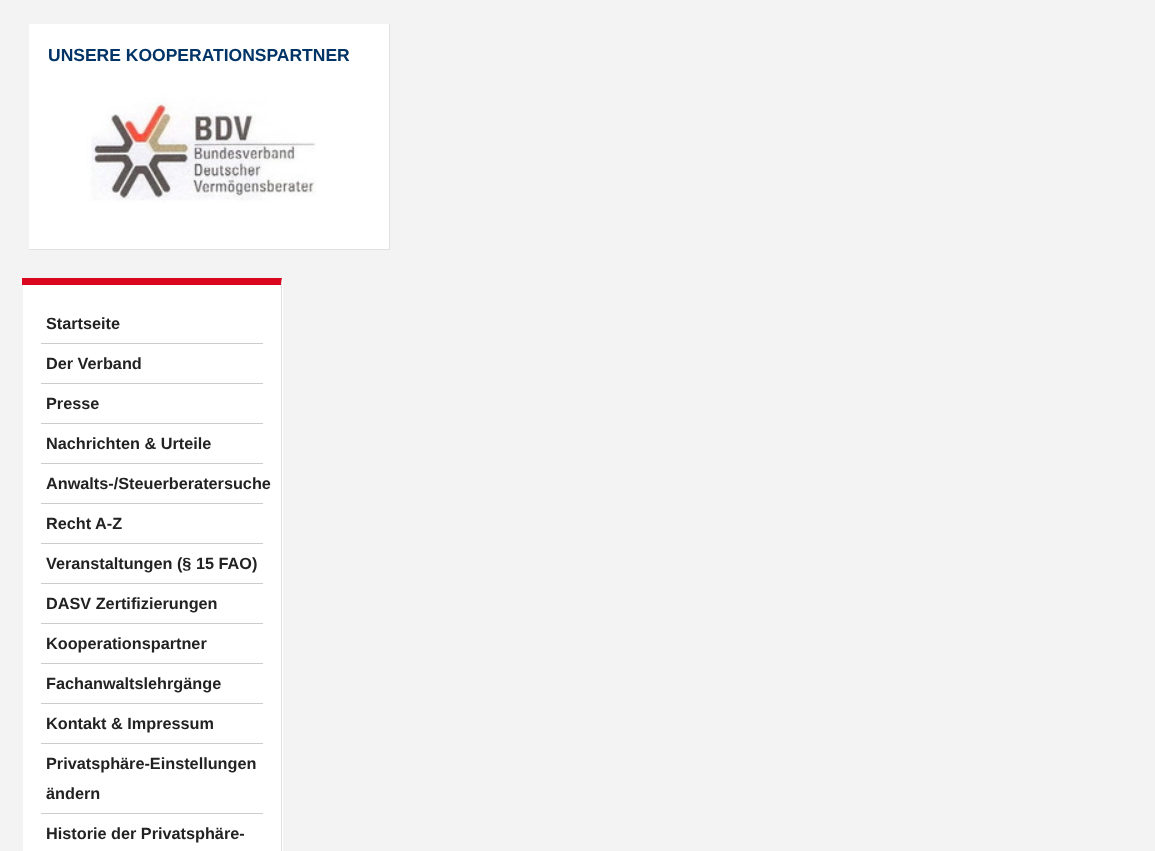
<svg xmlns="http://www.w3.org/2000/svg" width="1155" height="851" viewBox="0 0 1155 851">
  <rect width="100%" height="100%" fill="#f3f3f3"/>
  <path d="M29 24h360v225H29z" fill="#fff"/>
  <path d="M389 24h1v226H389z" fill="#e1e1e1"/>
  <path d="M29 249h361v1H29z" fill="#e1e1e1"/>
  <image x="86" y="92" width="230" height="111" href="img/1.png"/>
  <image x="96" y="106" width="212" height="91" href="img/2.png"/>
  <path d="M23 278h260v573H23z" fill="#fff"/>
  <path d="M22 278H282L281 285H22Z" fill="#da061d"/>
  <path d="M282 278V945L281 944V285Z" fill="#e1e1e1"/>
  <path d="M41 343h222v1H41z" fill="#ccc"/>
  <path d="M41 383h222v1H41z" fill="#ccc"/>
  <path d="M41 423h222v1H41z" fill="#ccc"/>
  <path d="M41 463h222v1H41z" fill="#ccc"/>
  <path d="M41 503h222v1H41z" fill="#ccc"/>
  <path d="M41 543h222v1H41z" fill="#ccc"/>
  <path d="M41 583h222v1H41z" fill="#ccc"/>
  <path d="M41 623h222v1H41z" fill="#ccc"/>
  <path d="M41 663h222v1H41z" fill="#ccc"/>
  <path d="M41 703h222v1H41z" fill="#ccc"/>
  <path d="M41 743h222v1H41z" fill="#ccc"/>
  <path d="M41 813h222v1H41z" fill="#ccc"/>
  <text x="48" y="61" font-family="Liberation Sans" font-size="17.5" font-weight="bold" fill="#036">UNSERE KOOPERATIONSPARTNER</text>
  <g font-family="Liberation Sans" font-size="16.25" font-weight="bold" fill="#222">
    <text x="46" y="329">Startseite</text>
    <text x="46" y="369">Der Verband</text>
    <text x="46" y="409">Presse</text>
    <text x="46" y="449">Nachrichten &amp; Urteile</text>
    <text x="46" y="489">Anwalts-/Steuerberatersuche</text>
    <text x="46" y="529">Recht A-Z</text>
    <text x="46" y="569">Veranstaltungen (§ 15 FAO)</text>
    <text x="46" y="609">DASV Zertifizierungen</text>
    <text x="46" y="649">Kooperationspartner</text>
    <text x="46" y="689">Fachanwaltslehrgänge</text>
    <text x="46" y="729">Kontakt &amp; Impressum</text>
    <text x="46" y="769">Privatsphäre-Einstellungen</text>
    <text x="46" y="799">ändern</text>
    <text x="46" y="839">Historie der Privatsphäre-</text>
  </g>
</svg>
